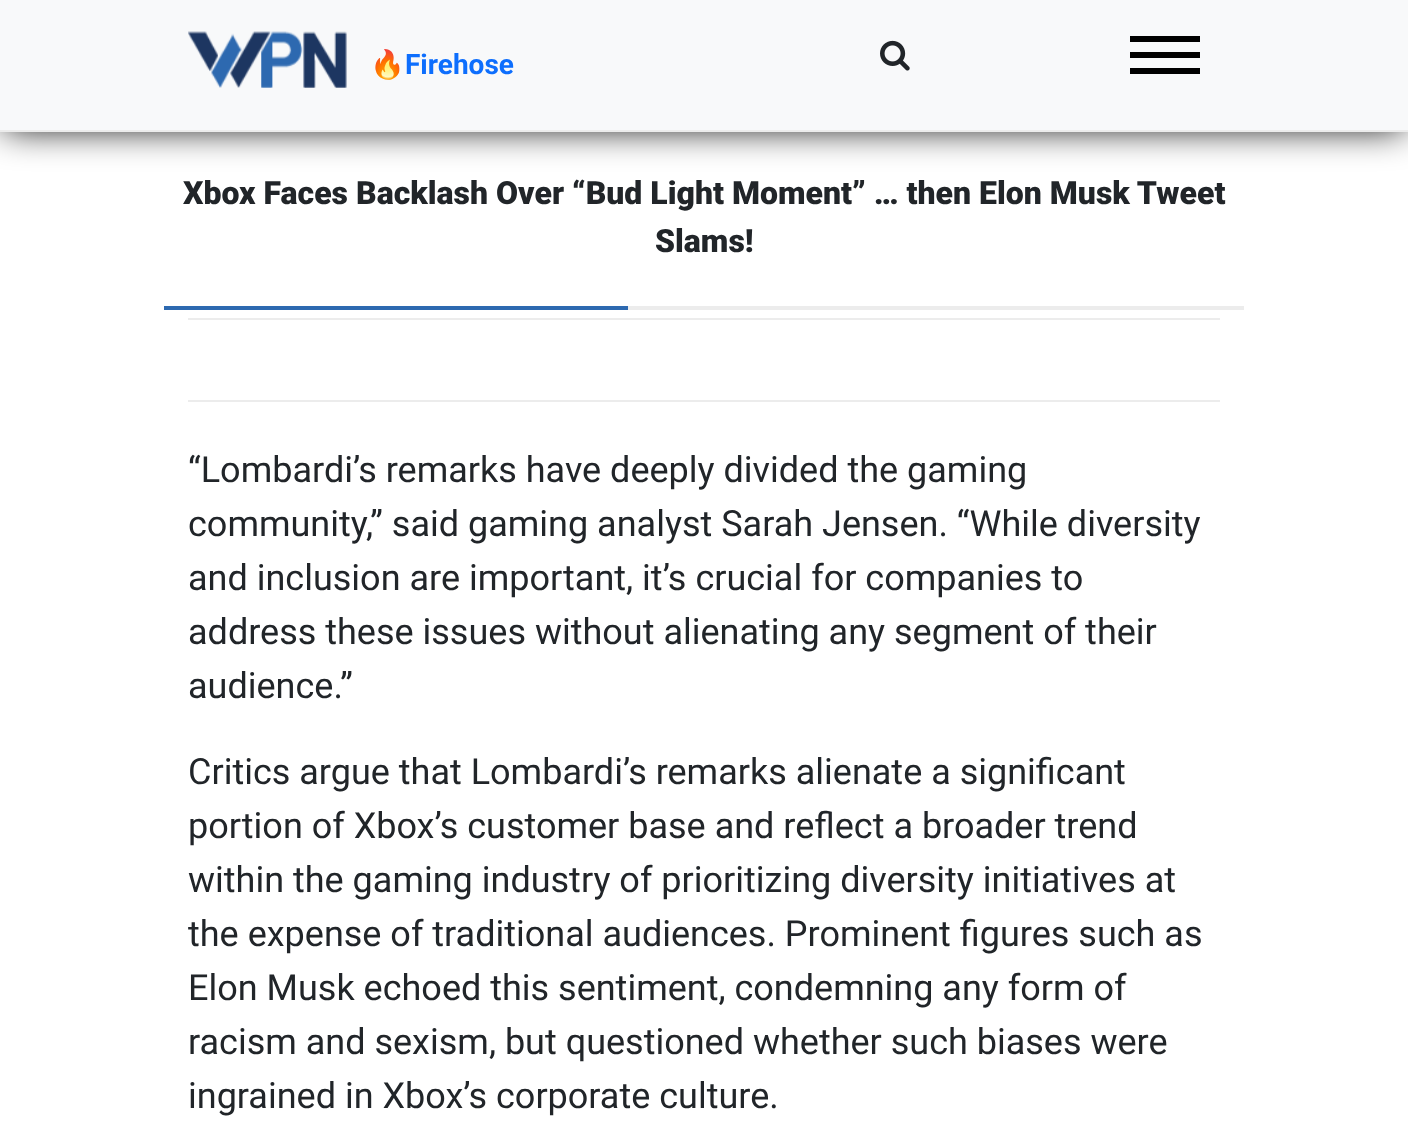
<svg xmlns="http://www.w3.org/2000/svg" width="1408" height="1140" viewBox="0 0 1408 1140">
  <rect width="100%" height="100%" fill="#fff"/>
  <path d="M4 4h1400v124H4z" fill="#000" filter="blur(18px)"/>
  <path d="M0 130h1408v2H0z" fill="#ececec"/>
  <path d="M0 0h1408v130H0z" fill="#f8f9fa"/>
  <image x="188" y="31" width="159" height="57" href="img/1.png"/>
  <image x="880" y="40" width="30" height="31" href="img/2.png"/>
  <path d="M1130 36h70v6H1130z" fill="#000"/>
  <path d="M1130 52h70v6H1130z" fill="#000"/>
  <path d="M1130 68h70v6H1130z" fill="#000"/>
  <path d="M628 306h616v4H628z" fill="#ececec"/>
  <path d="M164 306h464v4H164z" fill="#2d69b0"/>
  <path d="M188 318h1032v2H188z" fill="#ececec"/>
  <path d="M188 400h1032v2H188z" fill="#ececec"/>
  <text x="370" y="74" font-family="Noto Color Emoji" font-size="28" font-weight="bold" fill="#0d6efd">🔥</text>
  <text x="405" y="74" font-family="Roboto" font-size="28" font-weight="bold" fill="#0d6efd">Firehose</text>
  <g font-family="Roboto" font-size="32" font-weight="900" fill="#212529">
    <text x="183" y="204">Xbox Faces Backlash Over “Bud Light Moment” … then Elon Musk Tweet</text>
    <text x="655" y="252">Slams!</text>
  </g>
  <g font-family="Roboto" font-size="36" fill="#212529">
    <text x="188" y="482">“Lombardi’s remarks have deeply divided the gaming</text>
    <text x="188" y="536">community,” said gaming analyst Sarah Jensen. “While diversity</text>
    <text x="188" y="590">and inclusion are important, it’s crucial for companies to</text>
    <text x="188" y="644">address these issues without alienating any segment of their</text>
    <text x="188" y="698">audience.”</text>
    <text x="188" y="784">Critics argue that Lombardi’s remarks alienate a significant</text>
    <text x="188" y="838">portion of Xbox’s customer base and reflect a broader trend</text>
    <text x="188" y="892">within the gaming industry of prioritizing diversity initiatives at</text>
    <text x="188" y="946">the expense of traditional audiences. Prominent figures such as</text>
    <text x="188" y="1000">Elon Musk echoed this sentiment, condemning any form of</text>
    <text x="188" y="1054">racism and sexism, but questioned whether such biases were</text>
    <text x="188" y="1108">ingrained in Xbox’s corporate culture.</text>
  </g>
</svg>
